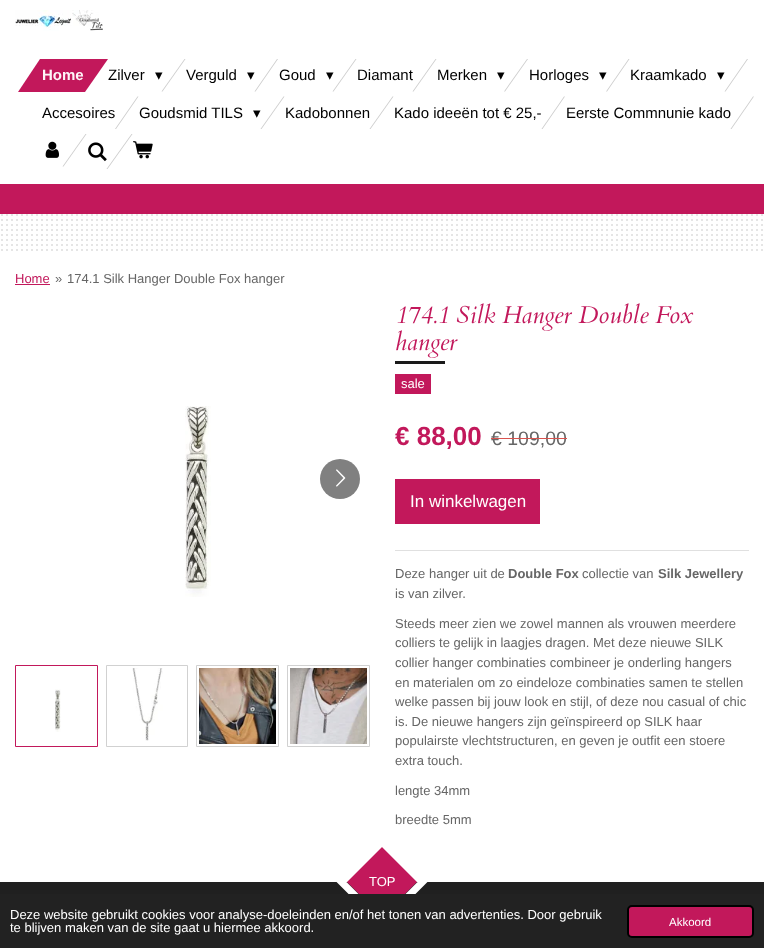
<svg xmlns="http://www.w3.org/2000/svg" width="764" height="948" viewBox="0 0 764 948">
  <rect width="100%" height="100%" fill="#fff"/>
  <image x="15" y="10" width="88" height="21" href="img/1.png"/>
  <path d="M40 59H108L85 92H18Z" fill="#c2185b"/>
  <path d="M184.5 59H185.5L162.5 91.5H161.5Z" fill="#ccc"/>
  <path d="M277 59H278L255.5 91.5H254.5Z" fill="#ccc"/>
  <path d="M355.5 59H356.5L333.5 91.5H332.5Z" fill="#ccc"/>
  <path d="M435.5 59H436.5L413.5 91.5H412.5Z" fill="#ccc"/>
  <path d="M527 59H528L505 91.5H504Z" fill="#ccc"/>
  <path d="M628.5 59H629.5L607 91.5H606Z" fill="#ccc"/>
  <path d="M747 59H748L725.5 91.5H724.5Z" fill="#ccc"/>
  <path d="M137.5 96.5H138.5L116 129H115Z" fill="#ccc"/>
  <path d="M283.5 96.5H284.5L261.5 129H260.5Z" fill="#ccc"/>
  <path d="M392.5 96.5H393.5L370.5 129H369.5Z" fill="#ccc"/>
  <path d="M564 96.5H565L542.5 129H541.5Z" fill="#ccc"/>
  <path d="M753 96.5H754L731.5 129H730.5Z" fill="#ccc"/>
  <image x="45" y="141" width="14" height="17" href="img/2.png"/>
  <path d="M85.5 134H86.5L63.5 166.5H62.5Z" fill="#ccc"/>
  <path d="M131.5 134H132.5L107.5 169H106.5Z" fill="#ccc"/>
  <image x="88" y="142" width="19" height="20" href="img/3.png"/>
  <image x="133" y="141" width="20" height="18" href="img/4.png"/>
  <image x="1" y="214" width="762" height="37" href="img/5.png"/>
  <path d="M0 184h764v30H0z" fill="#c2185b"/>
  <path d="M15 284h35v1H15z" fill="#c2185b"/>
  <path d="M395 361h50v3H395z" fill="#1a1a1a"/>
  <path d="M395 374h36v20H395z" fill="#c2185b"/>
  <image x="185" y="406" width="26" height="191" href="img/6.png"/>
  <circle cx="340" cy="479" r="20" fill="#808080"/>
  <image x="336" y="469" width="10" height="18" href="img/7.png"/>
  <path d="M15.5 665.5h82v81H15.5z" fill="none" stroke="#c2185b"/>
  <image x="55" y="689" width="6" height="43" href="img/8.png"/>
  <path d="M106.5 665.5h81v81H106.5z" fill="none" stroke="#d1d1d1"/>
  <image x="132" y="668" width="31" height="73" href="img/9.png"/>
  <path d="M196.5 665.5h82v81H196.5z" fill="none" stroke="#d1d1d1"/>
  <image x="199" y="668" width="77" height="76" href="img/10.png"/>
  <path d="M287.5 665.5h82v81H287.5z" fill="none" stroke="#d1d1d1"/>
  <image x="290" y="668" width="77" height="76" href="img/11.png"/>
  <path d="M395 479h145v45H395z" fill="#c2185b"/>
  <path d="M395 550h354v1H395z" fill="#e0e0e0"/>
  <path d="M0 882h764v12H0z" fill="#202020"/>
  <path d="M382 847L417 882L382 917L347 882Z" fill="#c2185b"/>
  <path d="M382 841.5L422.5 882L382 922.5L341.5 882Z" fill="none" stroke="#fff" stroke-width="7"/>
  <path d="M0 894h764v54H0z" fill="#222"/>
  <rect x="628" y="906" width="125" height="31" rx="4" fill="#c2185b" stroke="#000" stroke-width="2"/>
  <text x="42" y="80" font-family="Liberation Sans" font-size="15" font-weight="bold" fill="#fef5f8">Home</text>
  <text x="108" y="80" font-family="Liberation Sans" font-size="15" fill="#000">Zilver</text>
  <text x="155" y="80" font-family="DejaVu Sans" font-size="15" fill="#000">▾</text>
  <text x="186" y="80" font-family="Liberation Sans" font-size="15" fill="#000">Verguld</text>
  <text x="247" y="80" font-family="DejaVu Sans" font-size="15" fill="#000">▾</text>
  <text x="279" y="80" font-family="Liberation Sans" font-size="15" fill="#000">Goud</text>
  <text x="326" y="80" font-family="DejaVu Sans" font-size="15" fill="#000">▾</text>
  <g font-family="Liberation Sans" font-size="15" fill="#000">
    <text x="357" y="80">Diamant</text>
    <text x="437" y="80">Merken</text>
  </g>
  <text x="497" y="80" font-family="DejaVu Sans" font-size="15" fill="#000">▾</text>
  <text x="529" y="80" font-family="Liberation Sans" font-size="15" fill="#000">Horloges</text>
  <text x="599" y="80" font-family="DejaVu Sans" font-size="15" fill="#000">▾</text>
  <text x="630" y="80" font-family="Liberation Sans" font-size="15" fill="#000">Kraamkado</text>
  <text x="717" y="80" font-family="DejaVu Sans" font-size="15" fill="#000">▾</text>
  <g font-family="Liberation Sans" font-size="15" fill="#000">
    <text x="42" y="118">Accesoires</text>
    <text x="139" y="118">Goudsmid TILS</text>
  </g>
  <text x="253" y="118" font-family="DejaVu Sans" font-size="15" fill="#000">▾</text>
  <g font-family="Liberation Sans" font-size="15" fill="#000">
    <text x="285" y="118">Kadobonnen</text>
    <text x="394" y="118">Kado ideeën tot € 25,-</text>
    <text x="566" y="118">Eerste Commnunie kado</text>
  </g>
  <text x="15" y="283" font-family="Liberation Sans" font-size="13" fill="#c2185b">Home</text>
  <g font-family="Liberation Sans" font-size="13" fill="#666">
    <text x="55" y="283">»</text>
    <text x="67" y="283">174.1 Silk Hanger Double Fox hanger</text>
  </g>
  <g font-family="Cardo" font-size="24.5" font-style="italic" fill="#c2185b">
    <text x="395" y="323">174.1 Silk Hanger Double Fox</text>
    <text x="395" y="350">hanger</text>
  </g>
  <text x="401" y="388" font-family="Liberation Sans" font-size="13" fill="#fff">sale</text>
  <text x="395" y="445" font-family="Liberation Sans" font-size="26" font-weight="bold" fill="#c2185b">€ 88,00</text>
  <text x="491" y="445" font-family="Liberation Sans" font-size="19.5" fill="#666">€ 109,00</text>
  <path d="M491 438h76v1H491z" fill="#d9534f"/>
  <text x="410" y="507" font-family="Liberation Sans" font-size="17" fill="#fff">In winkelwagen</text>
  <text x="395" y="578" font-family="Liberation Sans" font-size="13" fill="#666">Deze hanger uit de</text>
  <text x="508" y="578" font-family="Liberation Sans" font-size="13" font-weight="bold" fill="#666">Double Fox</text>
  <text x="582" y="578" font-family="Liberation Sans" font-size="13" fill="#666">collectie van</text>
  <text x="658" y="578" font-family="Liberation Sans" font-size="13" font-weight="bold" fill="#666">Silk Jewellery</text>
  <g font-family="Liberation Sans" font-size="13" fill="#666">
    <text x="395" y="598">is van zilver.</text>
    <text x="395" y="628">Steeds meer zien we zowel mannen als vrouwen meerdere</text>
    <text x="395" y="647">colliers te gelijk in laagjes dragen. Met deze nieuwe SILK</text>
    <text x="395" y="667">collier hanger combinaties combineer je onderling hangers</text>
    <text x="395" y="687">en materialen om zo eindeloze combinaties samen te stellen</text>
    <text x="395" y="706">welke passen bij jouw look en stijl, of deze nou casual of chic</text>
    <text x="395" y="726">is. De nieuwe hangers zijn geïnspireerd op SILK haar</text>
    <text x="395" y="745">populairste vlechtstructuren, en geven je outfit een stoere</text>
    <text x="395" y="765">extra touch.</text>
    <text x="395" y="795">lengte 34mm</text>
    <text x="395" y="824">breedte 5mm</text>
  </g>
  <g font-family="Liberation Sans" font-size="13" fill="#fff">
    <text x="369" y="886">TOP</text>
    <text x="10" y="919">Deze website gebruikt cookies voor analyse-doeleinden en/of het tonen van advertenties. Door gebruik</text>
    <text x="10" y="932">te blijven maken van de site gaat u hiermee akkoord.</text>
  </g>
  <text x="669" y="926" font-family="Liberation Sans" font-size="11.5" fill="#fff">Akkoord</text>
</svg>
